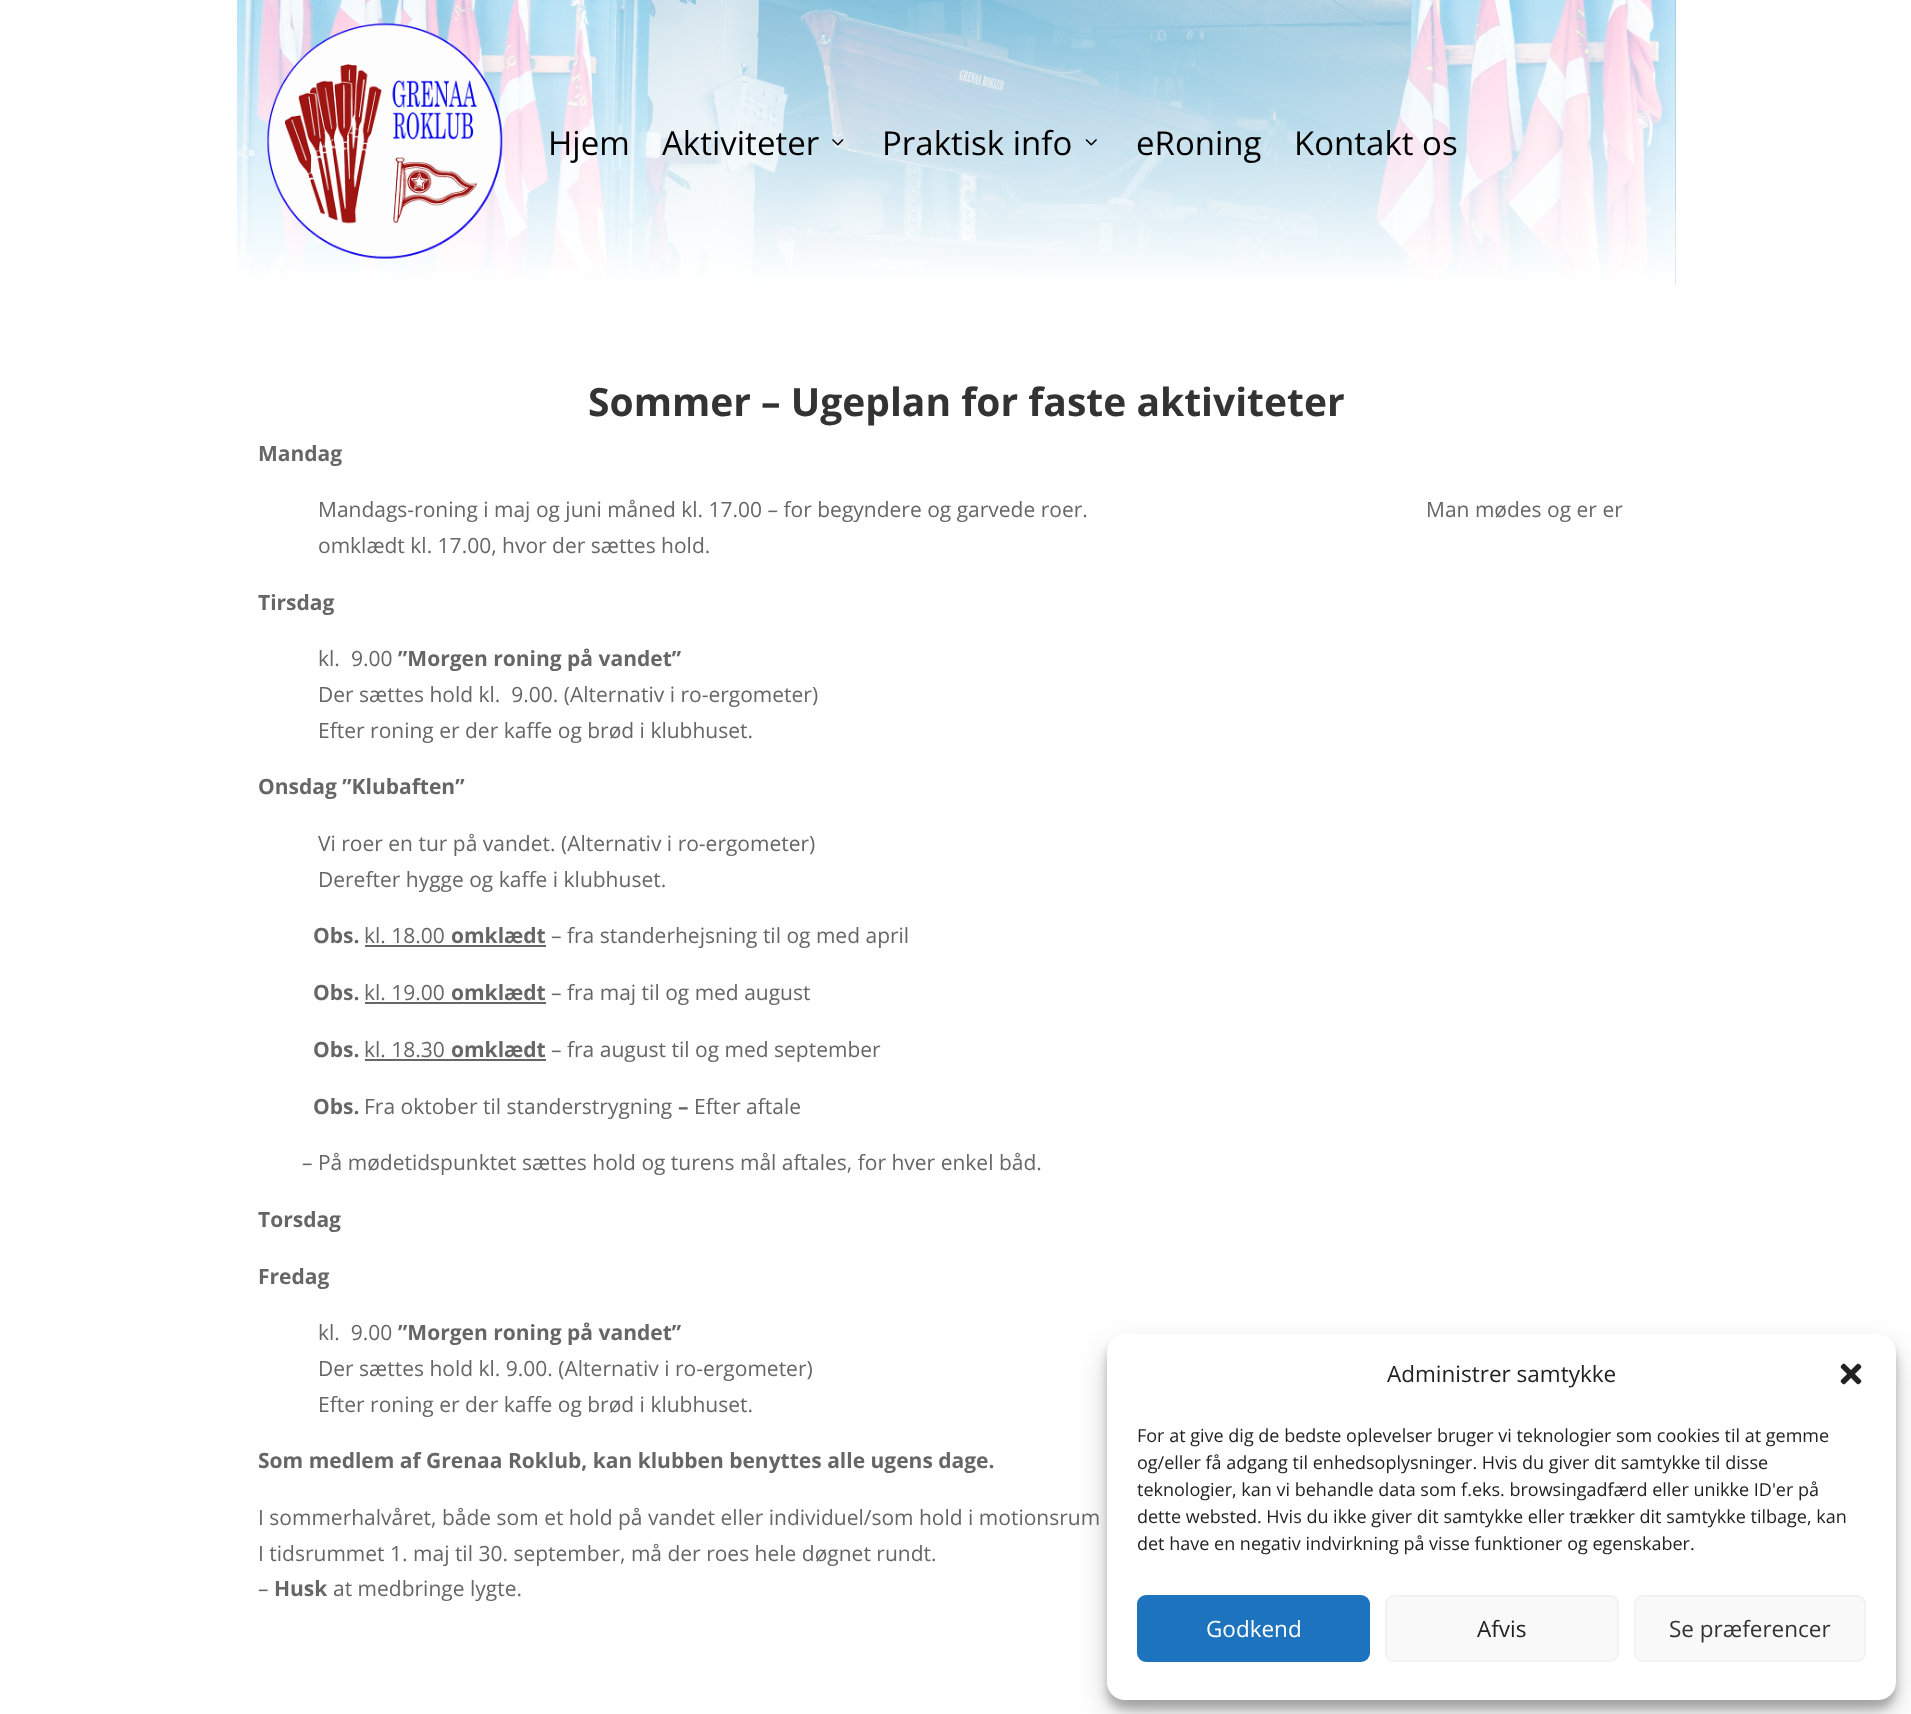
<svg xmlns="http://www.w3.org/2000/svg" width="1911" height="1714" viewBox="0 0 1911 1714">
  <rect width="100%" height="100%" fill="#fff"/>
  <image x="237" y="0" width="1439" height="285" href="img/1.png"/>
  <image x="267" y="23" width="236" height="236" href="img/2.png"/>
  <image x="832" y="139" width="12" height="7" href="img/3.png"/>
  <image x="1085" y="139" width="12" height="7" href="img/4.png"/>
  <path d="M365 945h181v2H365z" fill="#666"/>
  <path d="M365 1002h181v2H365z" fill="#666"/>
  <path d="M365 1059h181v2H365z" fill="#666"/>
  <rect x="1107" y="1343" width="789" height="366" rx="18" fill="#0000003b" filter="blur(4.5px)"/>
  <rect x="1107" y="1349" width="789" height="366" rx="18" fill="#00000030" filter="blur(15px)"/>
  <rect x="1107" y="1334" width="789" height="366" rx="18" fill="#fff"/>
  <image x="1840" y="1363" width="22" height="22" href="img/5.png"/>
  <rect x="1138" y="1596" width="231" height="65" rx="8" fill="#1e73be" stroke="#1e73be" stroke-width="2"/>
  <rect x="1386" y="1596" width="232" height="65" rx="8" fill="#f9f9f9" stroke="#f2f2f2" stroke-width="2"/>
  <rect x="1635" y="1596" width="230" height="65" rx="8" fill="#f9f9f9" stroke="#f2f2f2" stroke-width="2"/>
  <g font-family="Open Sans" font-size="33" fill="#000">
    <text x="548" y="155">Hjem</text>
    <text x="662" y="155">Aktiviteter</text>
    <text x="882" y="155">Praktisk info</text>
    <text x="1136" y="155">eRoning</text>
    <text x="1294" y="155">Kontakt os</text>
  </g>
  <text x="588" y="416" font-family="Open Sans" font-size="39" font-weight="bold" fill="#333">Sommer – Ugeplan for faste aktiviteter</text>
  <text x="258" y="461" font-family="Open Sans" font-size="21" font-weight="bold" fill="#666">Mandag</text>
  <g font-family="Open Sans" font-size="21" fill="#666">
    <text x="318" y="517" xml:space="preserve">Mandags-roning i maj og juni måned kl. 17.00 – for begyndere og garvede roer.                                                              Man mødes og er er</text>
    <text x="318" y="553">omklædt kl. 17.00, hvor der sættes hold.</text>
  </g>
  <text x="258" y="610" font-family="Open Sans" font-size="21" font-weight="bold" fill="#666">Tirsdag</text>
  <g font-family="Open Sans" font-size="21" fill="#666">
    <text x="318" y="666">kl.</text>
    <text x="351" y="666">9.00</text>
  </g>
  <text x="398" y="666" font-family="Open Sans" font-size="21" font-weight="bold" fill="#666">”Morgen roning på vandet”</text>
  <g font-family="Open Sans" font-size="21" fill="#666">
    <text x="318" y="702" xml:space="preserve">Der sættes hold kl.  9.00. (Alternativ i ro-ergometer)</text>
    <text x="318" y="738">Efter roning er der kaffe og brød i klubhuset.</text>
  </g>
  <text x="258" y="794" font-family="Open Sans" font-size="21" font-weight="bold" fill="#666">Onsdag ”Klubaften”</text>
  <g font-family="Open Sans" font-size="21" fill="#666">
    <text x="318" y="851">Vi roer en tur på vandet. (Alternativ i ro-ergometer)</text>
    <text x="318" y="887">Derefter hygge og kaffe i klubhuset.</text>
  </g>
  <text x="313" y="943" font-family="Open Sans" font-size="21" font-weight="bold" fill="#666">Obs.</text>
  <text x="364" y="943" font-family="Open Sans" font-size="21" fill="#666">kl. 18.00</text>
  <text x="451" y="943" font-family="Open Sans" font-size="21" font-weight="bold" fill="#666">omklædt</text>
  <text x="551" y="943" font-family="Open Sans" font-size="21" fill="#666">– fra standerhejsning til og med april</text>
  <text x="313" y="1000" font-family="Open Sans" font-size="21" font-weight="bold" fill="#666">Obs.</text>
  <text x="364" y="1000" font-family="Open Sans" font-size="21" fill="#666">kl. 19.00</text>
  <text x="451" y="1000" font-family="Open Sans" font-size="21" font-weight="bold" fill="#666">omklædt</text>
  <text x="551" y="1000" font-family="Open Sans" font-size="21" fill="#666">– fra maj til og med august</text>
  <text x="313" y="1057" font-family="Open Sans" font-size="21" font-weight="bold" fill="#666">Obs.</text>
  <text x="364" y="1057" font-family="Open Sans" font-size="21" fill="#666">kl. 18.30</text>
  <text x="451" y="1057" font-family="Open Sans" font-size="21" font-weight="bold" fill="#666">omklædt</text>
  <text x="551" y="1057" font-family="Open Sans" font-size="21" fill="#666">– fra august til og med september</text>
  <text x="313" y="1114" font-family="Open Sans" font-size="21" font-weight="bold" fill="#666">Obs.</text>
  <text x="364" y="1114" font-family="Open Sans" font-size="21" fill="#666">Fra oktober til standerstrygning</text>
  <text x="678" y="1114" font-family="Open Sans" font-size="21" font-weight="bold" fill="#666">–</text>
  <g font-family="Open Sans" font-size="21" fill="#666">
    <text x="694" y="1114">Efter aftale</text>
    <text x="302" y="1170">– På mødetidspunktet sættes hold og turens mål aftales, for hver enkel båd.</text>
  </g>
  <g font-family="Open Sans" font-size="21" font-weight="bold" fill="#666">
    <text x="258" y="1227">Torsdag</text>
    <text x="258" y="1284">Fredag</text>
  </g>
  <text x="318" y="1340" font-family="Open Sans" font-size="21" fill="#666" xml:space="preserve">kl.  9.00</text>
  <text x="398" y="1340" font-family="Open Sans" font-size="21" font-weight="bold" fill="#666">”Morgen roning på vandet”</text>
  <g font-family="Open Sans" font-size="21" fill="#666">
    <text x="318" y="1376">Der sættes hold kl. 9.00. (Alternativ i ro-ergometer)</text>
    <text x="318" y="1412">Efter roning er der kaffe og brød i klubhuset.</text>
  </g>
  <text x="258" y="1468" font-family="Open Sans" font-size="21" font-weight="bold" fill="#666">Som medlem af Grenaa Roklub, kan klubben benyttes alle ugens dage.</text>
  <g font-family="Open Sans" font-size="21" fill="#666">
    <text x="258" y="1525">I sommerhalvåret, både som et hold på vandet eller individuel/som hold i motionsrum</text>
    <text x="258" y="1561">I tidsrummet 1. maj til 30. september, må der roes hele døgnet rundt.</text>
    <text x="258" y="1596">–</text>
  </g>
  <text x="274" y="1596" font-family="Open Sans" font-size="21" font-weight="bold" fill="#666">Husk</text>
  <text x="333" y="1596" font-family="Open Sans" font-size="21" fill="#666">at medbringe lygte.</text>
  <text x="1387" y="1382" font-family="Open Sans" font-size="22.5" fill="#222">Administrer samtykke</text>
  <g font-family="Open Sans" font-size="18" fill="#222">
    <text x="1137" y="1442">For at give dig de bedste oplevelser bruger vi teknologier som cookies til at gemme</text>
    <text x="1137" y="1469">og/eller få adgang til enhedsoplysninger. Hvis du giver dit samtykke til disse</text>
    <text x="1137" y="1496">teknologier, kan vi behandle data som f.eks. browsingadfærd eller unikke ID'er på</text>
    <text x="1137" y="1523">dette websted. Hvis du ikke giver dit samtykke eller trækker dit samtykke tilbage, kan</text>
    <text x="1137" y="1550">det have en negativ indvirkning på visse funktioner og egenskaber.</text>
  </g>
  <text x="1206" y="1637" font-family="Open Sans" font-size="22.5" fill="#fff">Godkend</text>
  <text x="1477" y="1637" font-family="Open Sans" font-size="22.5" fill="#222">Afvis</text>
  <text x="1669" y="1637" font-family="Open Sans" font-size="22.5" fill="#333">Se præferencer</text>
</svg>
